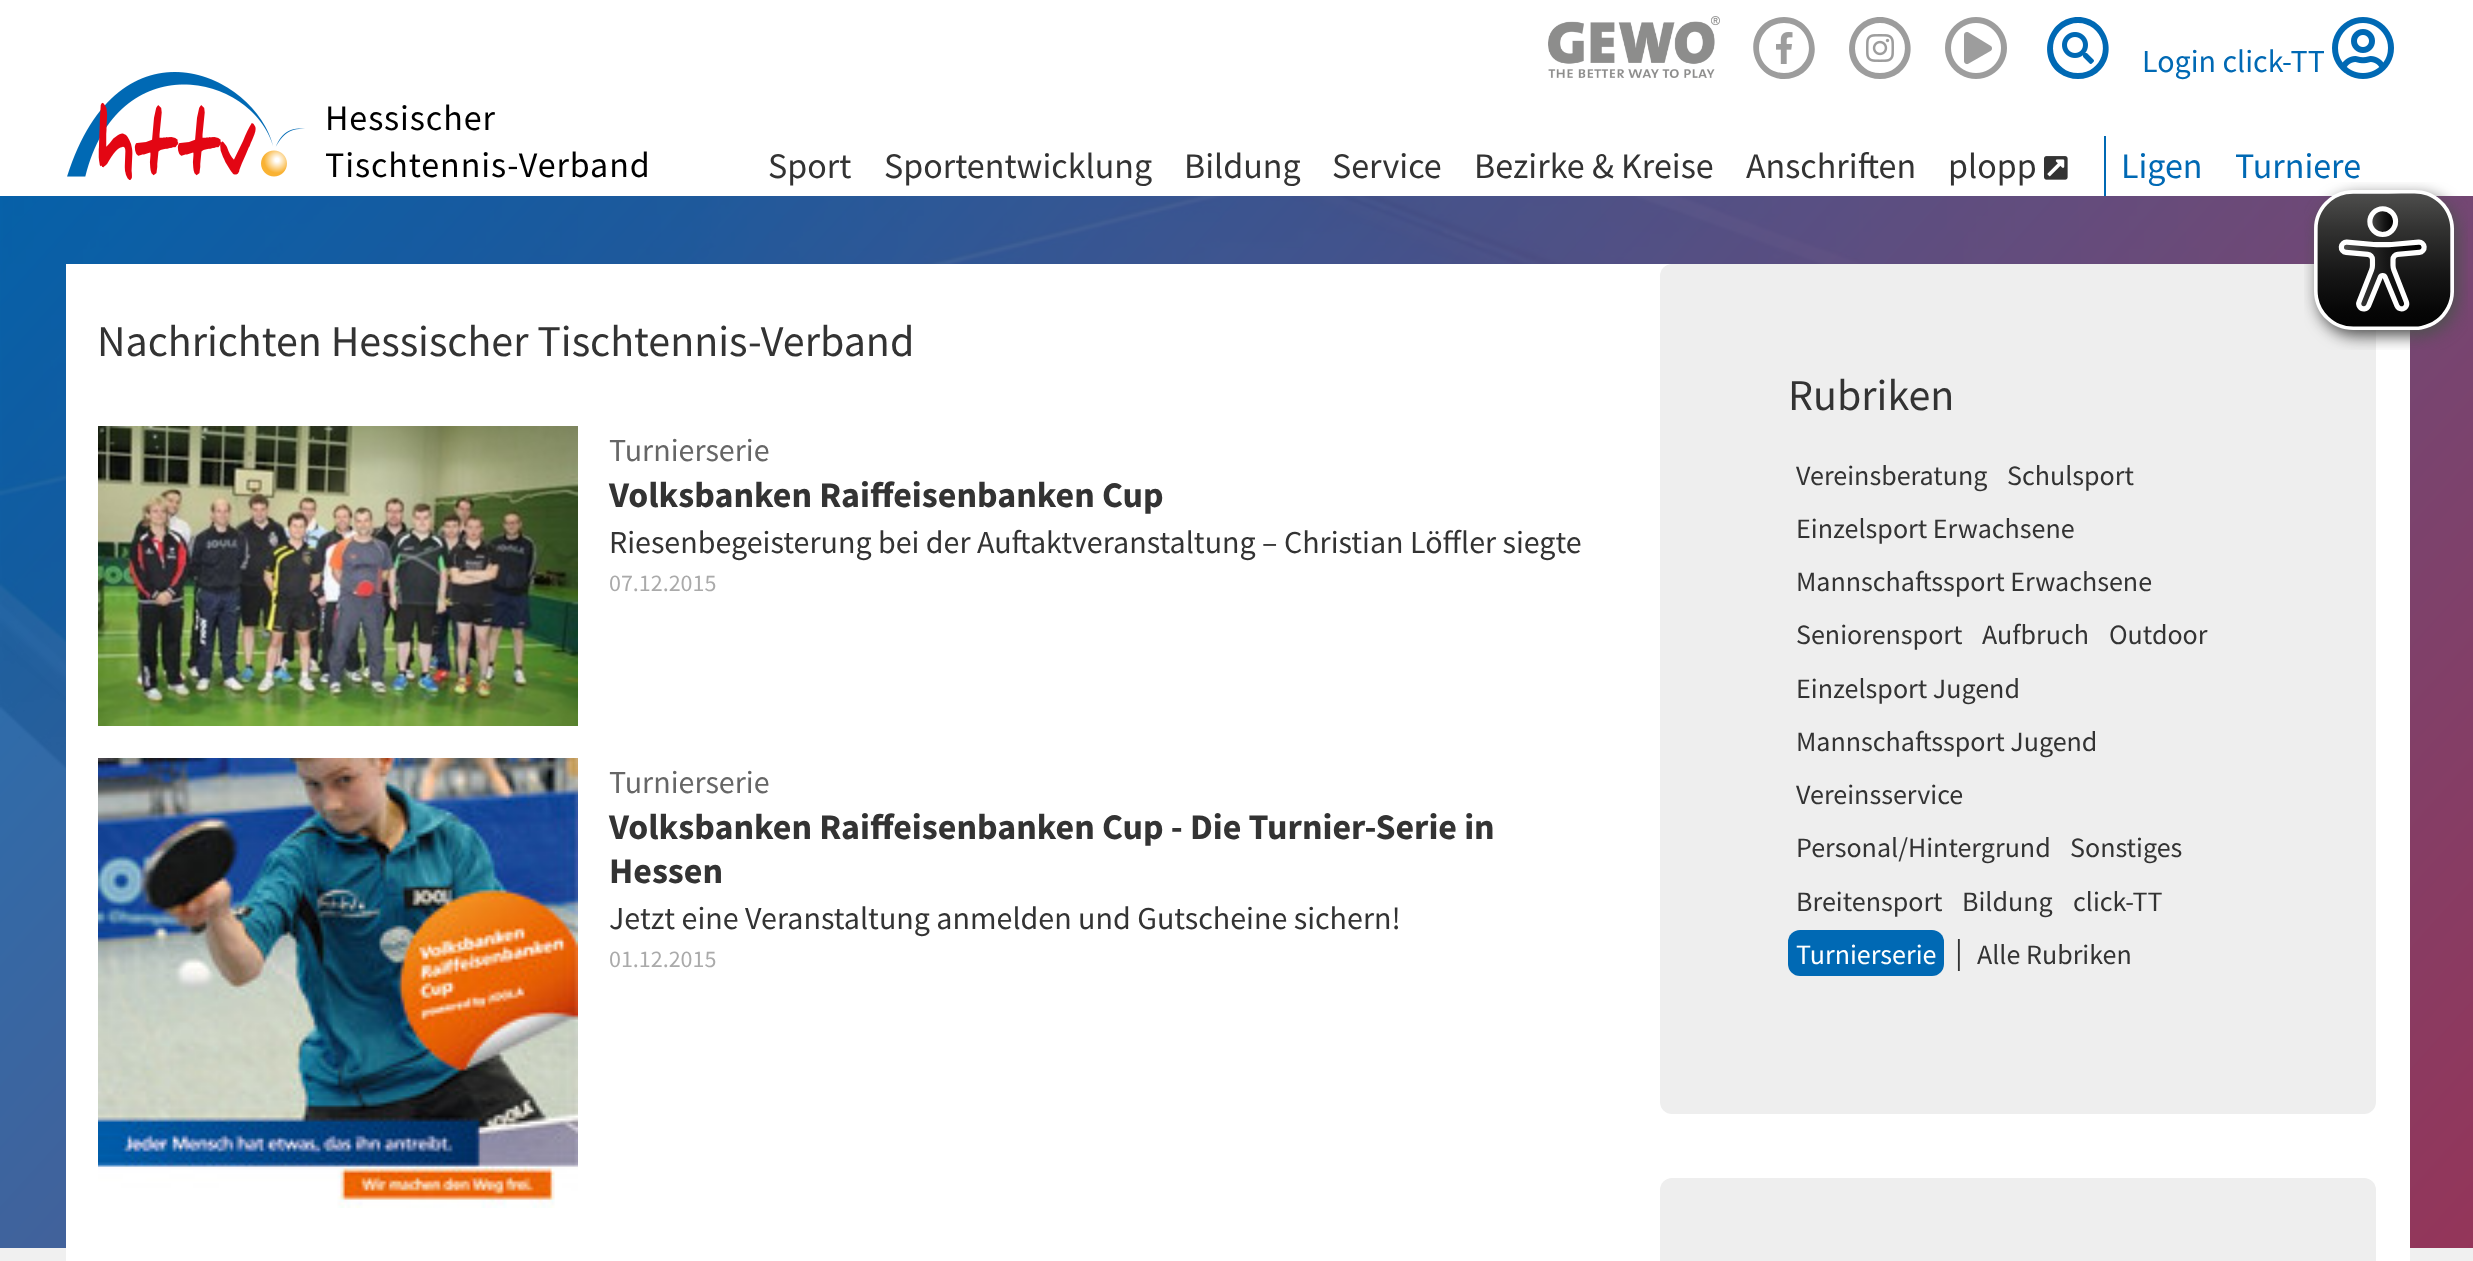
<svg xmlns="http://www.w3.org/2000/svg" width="2473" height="1261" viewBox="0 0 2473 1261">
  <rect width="100%" height="100%" fill="#f0f0f0"/>
  <image x="0" y="196" width="2473" height="1052" href="img/1.png"/>
  <path d="M0 0h2473v196H0z" fill="#fff"/>
  <image x="67" y="72" width="238" height="108" href="img/2.png"/>
  <image x="1548" y="16" width="172" height="62" href="img/3.png"/>
  <image x="1776" y="32" width="17" height="32" href="img/4.png"/>
  <path d="M1784 17C1777 17 1771 19 1765 23C1742 41 1755 79 1784 79C1791 79 1797 77 1803 73C1826 55 1813 17 1784 17ZM1784 73C1760 73 1750 43 1769 28C1773 25 1778 23 1784 23C1808 23 1818 53 1799 68C1795 71 1790 73 1784 73Z" fill="#9d9d9d"/>
  <image x="1866" y="34" width="28" height="28" href="img/5.png"/>
  <path d="M1880 17C1851 17 1838 55 1861 73C1867 77 1873 79 1880 79C1887 79 1893 77 1899 73C1922 55 1909 17 1880 17ZM1880 73C1856 73 1846 43 1865 28C1869 25 1874 23 1880 23C1886 23 1891 25 1895 28C1914 43 1904 73 1880 73Z" fill="#9d9d9d"/>
  <image x="1945" y="17" width="62" height="62" href="img/6.png"/>
  <image x="2062" y="32" width="32" height="32" href="img/7.png"/>
  <path d="M2078 17C2049 17 2036 55 2059 73C2065 77 2071 79 2078 79C2085 79 2091 77 2097 73C2120 55 2107 17 2078 17ZM2078 73C2054 73 2044 43 2063 28C2067 25 2072 23 2078 23C2084 23 2089 25 2093 28C2112 43 2102 73 2078 73Z" fill="#0069b4"/>
  <image x="2332" y="17" width="62" height="62" href="img/8.png"/>
  <image x="2044" y="156" width="24" height="24" href="img/9.png"/>
  <path d="M2104 136h2v60H2104z" fill="#0069b4"/>
  <path d="M66 264h2344v997H66z" fill="#fff"/>
  <image x="98" y="426" width="480" height="300" href="img/10.png"/>
  <image x="98" y="758" width="480" height="450" href="img/11.png"/>
  <rect x="1660" y="264" width="716" height="850" rx="12" fill="#eee"/>
  <rect x="1788" y="930" width="156" height="46" rx="12" fill="#0069b4"/>
  <rect x="1660" y="1178" width="716" height="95" rx="12" fill="#eee"/>
  <image x="2304" y="182" width="164" height="168" href="img/12.png"/>
  <g font-family="Source Sans Pro" font-size="36" letter-spacing="0.9" fill="#000">
    <text x="325" y="130">Hessischer</text>
    <text x="325" y="177">Tischtennis-Verband</text>
  </g>
  <text x="2142" y="72" font-family="Source Sans Pro" font-size="32" fill="#0069b4">Login click-TT</text>
  <g font-family="Source Sans Pro" font-size="36" fill="#333">
    <text x="768" y="178">Sport</text>
    <text x="884" y="178">Sportentwicklung</text>
    <text x="1184" y="178">Bildung</text>
    <text x="1332" y="178">Service</text>
    <text x="1474" y="178">Bezirke &amp; Kreise</text>
    <text x="1746" y="178">Anschriften</text>
    <text x="1948" y="178">plopp</text>
  </g>
  <g font-family="Source Sans Pro" font-size="36" fill="#0069b4">
    <text x="2121" y="178">Ligen</text>
    <text x="2235" y="178">Turniere</text>
  </g>
  <text x="97" y="356" font-family="Source Sans Pro" font-size="44" fill="#333">Nachrichten Hessischer Tischtennis-Verband</text>
  <text x="609" y="461" font-family="Source Sans Pro" font-size="32" fill="#666">Turnierserie</text>
  <text x="609" y="507" font-family="Source Sans Pro" font-size="36" font-weight="bold" fill="#333">Volksbanken Raiffeisenbanken Cup</text>
  <text x="609" y="553" font-family="Source Sans Pro" font-size="32" fill="#333">Riesenbegeisterung bei der Auftaktveranstaltung – Christian Löffler siegte</text>
  <text x="609" y="591" font-family="Source Sans Pro" font-size="24" fill="#aaa">07.12.2015</text>
  <text x="609" y="793" font-family="Source Sans Pro" font-size="32" fill="#666">Turnierserie</text>
  <g font-family="Source Sans Pro" font-size="36" font-weight="bold" fill="#333">
    <text x="609" y="839">Volksbanken Raiffeisenbanken Cup - Die Turnier-Serie in</text>
    <text x="609" y="883">Hessen</text>
  </g>
  <text x="609" y="929" font-family="Source Sans Pro" font-size="32" fill="#333">Jetzt eine Veranstaltung anmelden und Gutscheine sichern!</text>
  <text x="609" y="967" font-family="Source Sans Pro" font-size="24" fill="#aaa">01.12.2015</text>
  <text x="1788" y="410" font-family="Source Sans Pro" font-size="44" fill="#333">Rubriken</text>
  <g font-family="Source Sans Pro" font-size="28" fill="#333">
    <text x="1796" y="485">Vereinsberatung</text>
    <text x="2007" y="485">Schulsport</text>
    <text x="1796" y="538">Einzelsport Erwachsene</text>
    <text x="1796" y="591">Mannschaftssport Erwachsene</text>
    <text x="1796" y="644">Seniorensport</text>
    <text x="1982" y="644">Aufbruch</text>
    <text x="2109" y="644">Outdoor</text>
    <text x="1796" y="698">Einzelsport Jugend</text>
    <text x="1796" y="751">Mannschaftssport Jugend</text>
    <text x="1796" y="804">Vereinsservice</text>
    <text x="1796" y="857">Personal/Hintergrund</text>
    <text x="2070" y="857">Sonstiges</text>
    <text x="1796" y="911">Breitensport</text>
    <text x="1962" y="911">Bildung</text>
    <text x="2073" y="911">click-TT</text>
  </g>
  <text x="1796" y="964" font-family="Source Sans Pro" font-size="28" fill="#fff">Turnierserie</text>
  <text x="1955" y="963" font-family="Source Sans Pro" font-size="32" fill="#333">|</text>
  <text x="1977" y="964" font-family="Source Sans Pro" font-size="28" fill="#333">Alle Rubriken</text>
</svg>
